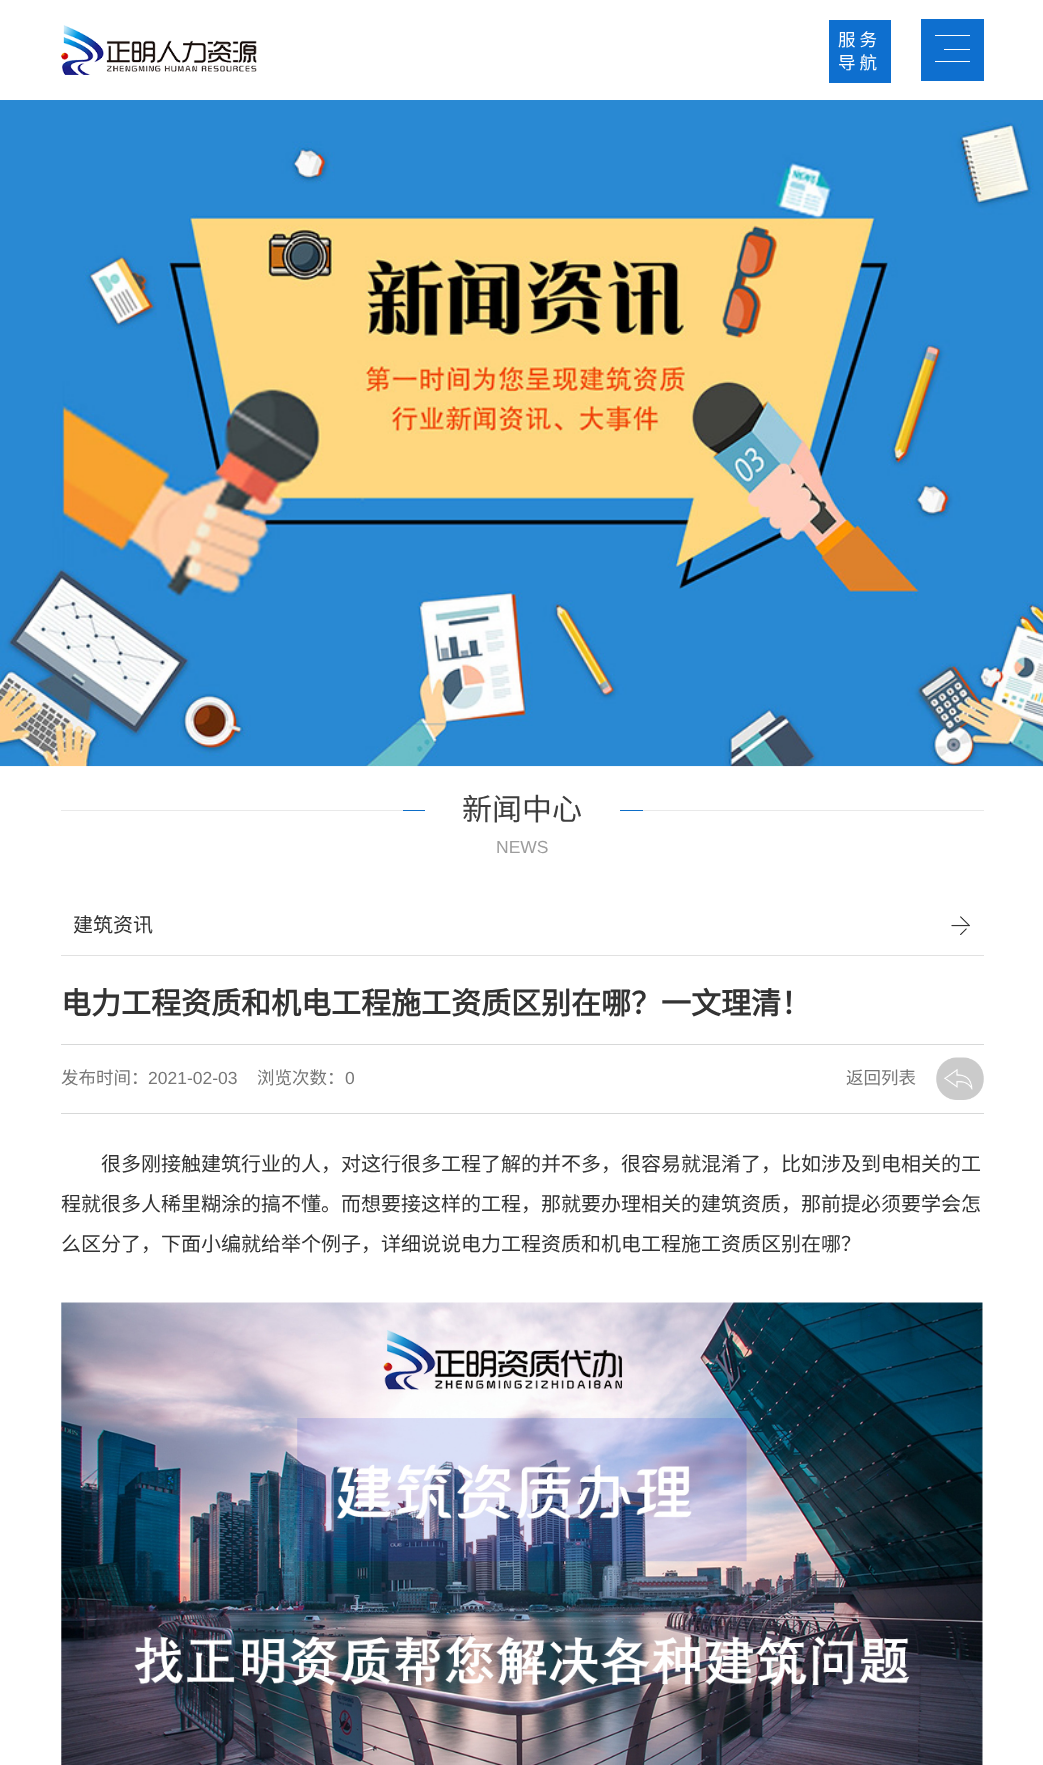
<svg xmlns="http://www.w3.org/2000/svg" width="1043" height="1765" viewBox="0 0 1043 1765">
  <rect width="100%" height="100%" fill="#fff"/>
  <image x="61" y="25" width="196" height="50" href="img/1.png"/>
  <path d="M829 20h62v63H829z" fill="#0e6fcf"/>
  <path d="M921 19h63v62H921z" fill="#0e6fcf"/>
  <path d="M944 49h26v1H944z" fill="#fff"/>
  <path d="M935 35h35v1H935z" fill="#fff"/>
  <path d="M935 61h35v1H935z" fill="#fff"/>
  <image x="0" y="100" width="1043" height="667" href="img/2.png"/>
  <path d="M61 810h923v1H61z" fill="#e9e9e9"/>
  <path d="M425 810h195v1H425z" fill="#fff"/>
  <path d="M403 810h22v1H403z" fill="#0c6dc7"/>
  <path d="M620 810h23v1H620z" fill="#0c6dc7"/>
  <path d="M61 955h923v1H61z" fill="#e1e1e1"/>
  <image x="951" y="916" width="19" height="19" href="img/3.png"/>
  <path d="M61 1044h923v1H61z" fill="#d7d8d8"/>
  <path d="M61 1113h923v1H61z" fill="#d7d8d8"/>
  <image x="936" y="1057" width="48" height="43" href="img/4.png"/>
  <image x="61" y="1302" width="922" height="463" href="img/5.png"/>
  <g font-family="Noto Sans CJK SC" font-size="17.5" letter-spacing="4" fill="#fff">
    <text x="838" y="46">服务</text>
    <text x="838" y="69">导航</text>
  </g>
  <text x="462" y="820" font-family="Noto Sans CJK SC" font-size="30" fill="#3e3e3e">新闻中心</text>
  <text x="496" y="853" font-family="Liberation Sans" font-size="17.5" fill="#9d9d9d">NEWS</text>
  <text x="73" y="932" font-family="Noto Sans CJK SC" font-size="20" fill="#333">建筑资讯</text>
  <text x="61" y="1014" font-family="Noto Sans CJK SC" font-size="30" font-weight="bold" fill="#333">电力工程资质和机电工程施工资质区别在哪？一文理清！</text>
  <text x="61" y="1084" font-family="Noto Sans CJK SC" font-size="17.5" fill="#777">发布时间：</text>
  <text x="148" y="1084" font-family="Liberation Sans" font-size="17.5" fill="#777">2021-02-03</text>
  <text x="257" y="1084" font-family="Noto Sans CJK SC" font-size="17.5" fill="#777">浏览次数：</text>
  <text x="345" y="1084" font-family="Liberation Sans" font-size="17.5" fill="#777">0</text>
  <text x="846" y="1084" font-family="Noto Sans CJK SC" font-size="17.5" fill="#777">返回列表</text>
  <g font-family="Noto Sans CJK SC" font-size="20" fill="#333">
    <text x="101" y="1171">很多刚接触建筑行业的人，对这行很多工程了解的并不多，很容易就混淆了，比如涉及到电相关的工</text>
    <text x="61" y="1211">程就很多人稀里糊涂的搞不懂。而想要接这样的工程，那就要办理相关的建筑资质，那前提必须要学会怎</text>
    <text x="61" y="1251">么区分了，下面小编就给举个例子，详细说说电力工程资质和机电工程施工资质区别在哪？</text>
  </g>
</svg>
